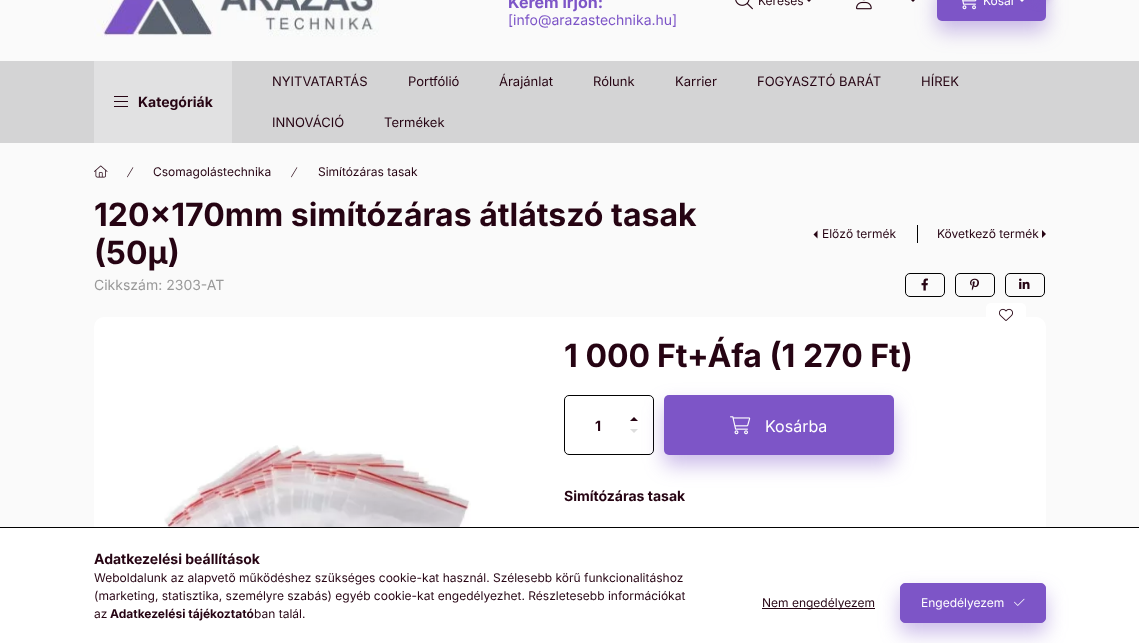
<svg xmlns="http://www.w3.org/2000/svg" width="1139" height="643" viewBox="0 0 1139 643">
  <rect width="100%" height="100%" fill="#fafafa"/>
  <image x="94" y="0" width="285" height="37" href="img/1.png"/>
  <image x="735" y="0" width="18" height="10" href="img/2.png"/>
  <path d="M806-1H812L809 2Z" fill="#260413"/>
  <image x="856" y="0" width="16" height="10" href="img/3.png"/>
  <path d="M0 61h1139v82H0z" fill="#d4d4d5"/>
  <rect x="937" y="-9" width="109" height="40" rx="5" fill="#7d55c766" filter="blur(10px)"/>
  <path d="M910-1H916L913 2Z" fill="#260413"/>
  <rect x="937" y="-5" width="109" height="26" rx="5" fill="#7d55c7"/>
  <image x="962" y="0" width="15" height="10" href="img/4.png"/>
  <rect x="1030" y="-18" width="20" height="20" rx="10" fill="#7d55c766" filter="blur(5px)"/>
  <path d="M1019-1H1025L1022 2Z" fill="#fff"/>
  <path d="M94 61h138v82H94z" fill="#e1e1e2"/>
  <path d="M114 96h14v1H114z" fill="#260413"/>
  <path d="M114 101h14v1H114z" fill="#260413"/>
  <path d="M114 106h14v1H114z" fill="#260413"/>
  <image x="94" y="165" width="14" height="13" href="img/5.png"/>
  <image x="127" y="167" width="7" height="11" href="img/6.png"/>
  <image x="291" y="167" width="7" height="11" href="img/6.png"/>
  <path d="M817.5 238.5V230.5L813.5 234.5Z" fill="#260413"/>
  <path d="M917 225h1v18H917z" fill="#020202"/>
  <path d="M1042 238V230L1046 234Z" fill="#260413"/>
  <rect x="905.5" y="273.5" width="39" height="23" rx="4.5" fill="none" stroke="#020202"/>
  <image x="921" y="278" width="7" height="13" href="img/7.png"/>
  <rect x="955.5" y="273.5" width="39" height="23" rx="4.5" fill="none" stroke="#020202"/>
  <image x="970" y="278" width="9" height="13" href="img/8.png"/>
  <rect x="1005.5" y="273.5" width="39" height="23" rx="4.5" fill="none" stroke="#020202"/>
  <image x="1019" y="278" width="11" height="11" href="img/9.png"/>
  <rect x="94" y="317" width="952" height="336" rx="10" fill="#fff"/>
  <rect x="986" y="303" width="40" height="24" rx="5" fill="#fff"/>
  <image x="999" y="308" width="14" height="13" href="img/10.png"/>
  <image x="164" y="445" width="307" height="82" href="img/11.png"/>
  <rect x="564.5" y="395.5" width="89" height="59" rx="4.5" fill="none" stroke="#020202"/>
  <path d="M638 421H630L634 417Z" fill="#260413"/>
  <path d="M630 429H638L634 433Z" fill="#ddd"/>
  <rect x="664" y="405" width="230" height="60" rx="5" fill="#7d55c766" filter="blur(10px)"/>
  <rect x="664" y="395" width="230" height="60" rx="5" fill="#7d55c7"/>
  <image x="730" y="416" width="21" height="19" href="img/12.png"/>
  <path d="M0 528h1139v115H0z" fill="#fff"/>
  <path d="M0 527h1139v1H0z" fill="#020202"/>
  <path d="M762 608h113v1H762z" fill="#260413"/>
  <rect x="900" y="593" width="146" height="40" rx="5" fill="#7d55c766" filter="blur(10px)"/>
  <rect x="900.5" y="583.5" width="145" height="39" rx="4.5" fill="#7d55c7" stroke="#7d55c7"/>
  <image x="1014" y="598" width="11" height="8" href="img/13.png"/>
  <text x="508" y="8" font-family="Inter" font-size="16" font-weight="bold" fill="#7d55c7">Kérem írjon:</text>
  <text x="508" y="25" font-family="Inter" font-size="14" fill="#7d55c7">[info@arazastechnika.hu]</text>
  <text x="758" y="5" font-family="Inter" font-size="12" fill="#260413">Keresés</text>
  <text x="983" y="5" font-family="Inter" font-size="12" fill="#fff">Kosár</text>
  <text x="138" y="107" font-family="Inter" font-size="14" font-weight="bold" fill="#260413">Kategóriák</text>
  <g font-family="Inter" font-size="13" fill="#260413">
    <text x="272" y="86">NYITVATARTÁS</text>
    <text x="408" y="86">Portfólió</text>
    <text x="499" y="86">Árajánlat</text>
    <text x="593" y="86">Rólunk</text>
    <text x="675" y="86">Karrier</text>
    <text x="757" y="86">FOGYASZTÓ BARÁT</text>
    <text x="921" y="86">HÍREK</text>
    <text x="272" y="127">INNOVÁCIÓ</text>
    <text x="384" y="127">Termékek</text>
  </g>
  <g font-family="Inter" font-size="12" fill="#260413">
    <text x="153" y="176">Csomagolástechnika</text>
    <text x="318" y="176">Simítózáras tasak</text>
  </g>
  <g font-family="Inter" font-size="32" font-weight="bold" fill="#260413">
    <text x="94" y="226">120x170mm simítózáras átlátszó tasak</text>
    <text x="94" y="264">(50µ)</text>
  </g>
  <g font-family="Inter" font-size="12" fill="#260413">
    <text x="822" y="238">Előző termék</text>
    <text x="937" y="238">Következő termék</text>
  </g>
  <text x="94" y="290" font-family="Inter" font-size="14" fill="#999">Cikkszám: 2303-AT</text>
  <g font-family="Inter" font-size="32" font-weight="bold" fill="#260413">
    <text x="564" y="367">1 000</text>
    <text x="657" y="367">Ft+Áfa (1 270 Ft)</text>
  </g>
  <text x="595" y="431" font-family="Inter" font-size="14" font-weight="bold" fill="#260413">1</text>
  <text x="765" y="432" font-family="Inter" font-size="16" fill="#fff">Kosárba</text>
  <g font-family="Inter" font-size="14" font-weight="bold" fill="#260413">
    <text x="564" y="501">Simítózáras tasak</text>
    <text x="94" y="564">Adatkezelési beállítások</text>
  </g>
  <g font-family="Inter" font-size="12" fill="#260413">
    <text x="94" y="582">Weboldalunk az alapvető működéshez szükséges cookie-kat használ. Szélesebb körű funkcionalitáshoz</text>
    <text x="94" y="600">(marketing, statisztika, személyre szabás) egyéb cookie-kat engedélyezhet. Részletesebb információkat</text>
    <text x="94" y="618">az</text>
  </g>
  <text x="110" y="618" font-family="Inter" font-size="12" font-weight="bold" fill="#260413">Adatkezelési tájékoztató</text>
  <g font-family="Inter" font-size="12" fill="#260413">
    <text x="254" y="618">ban talál.</text>
    <text x="762" y="607">Nem engedélyezem</text>
  </g>
  <text x="921" y="607" font-family="Inter" font-size="12" fill="#fff">Engedélyezem</text>
</svg>
